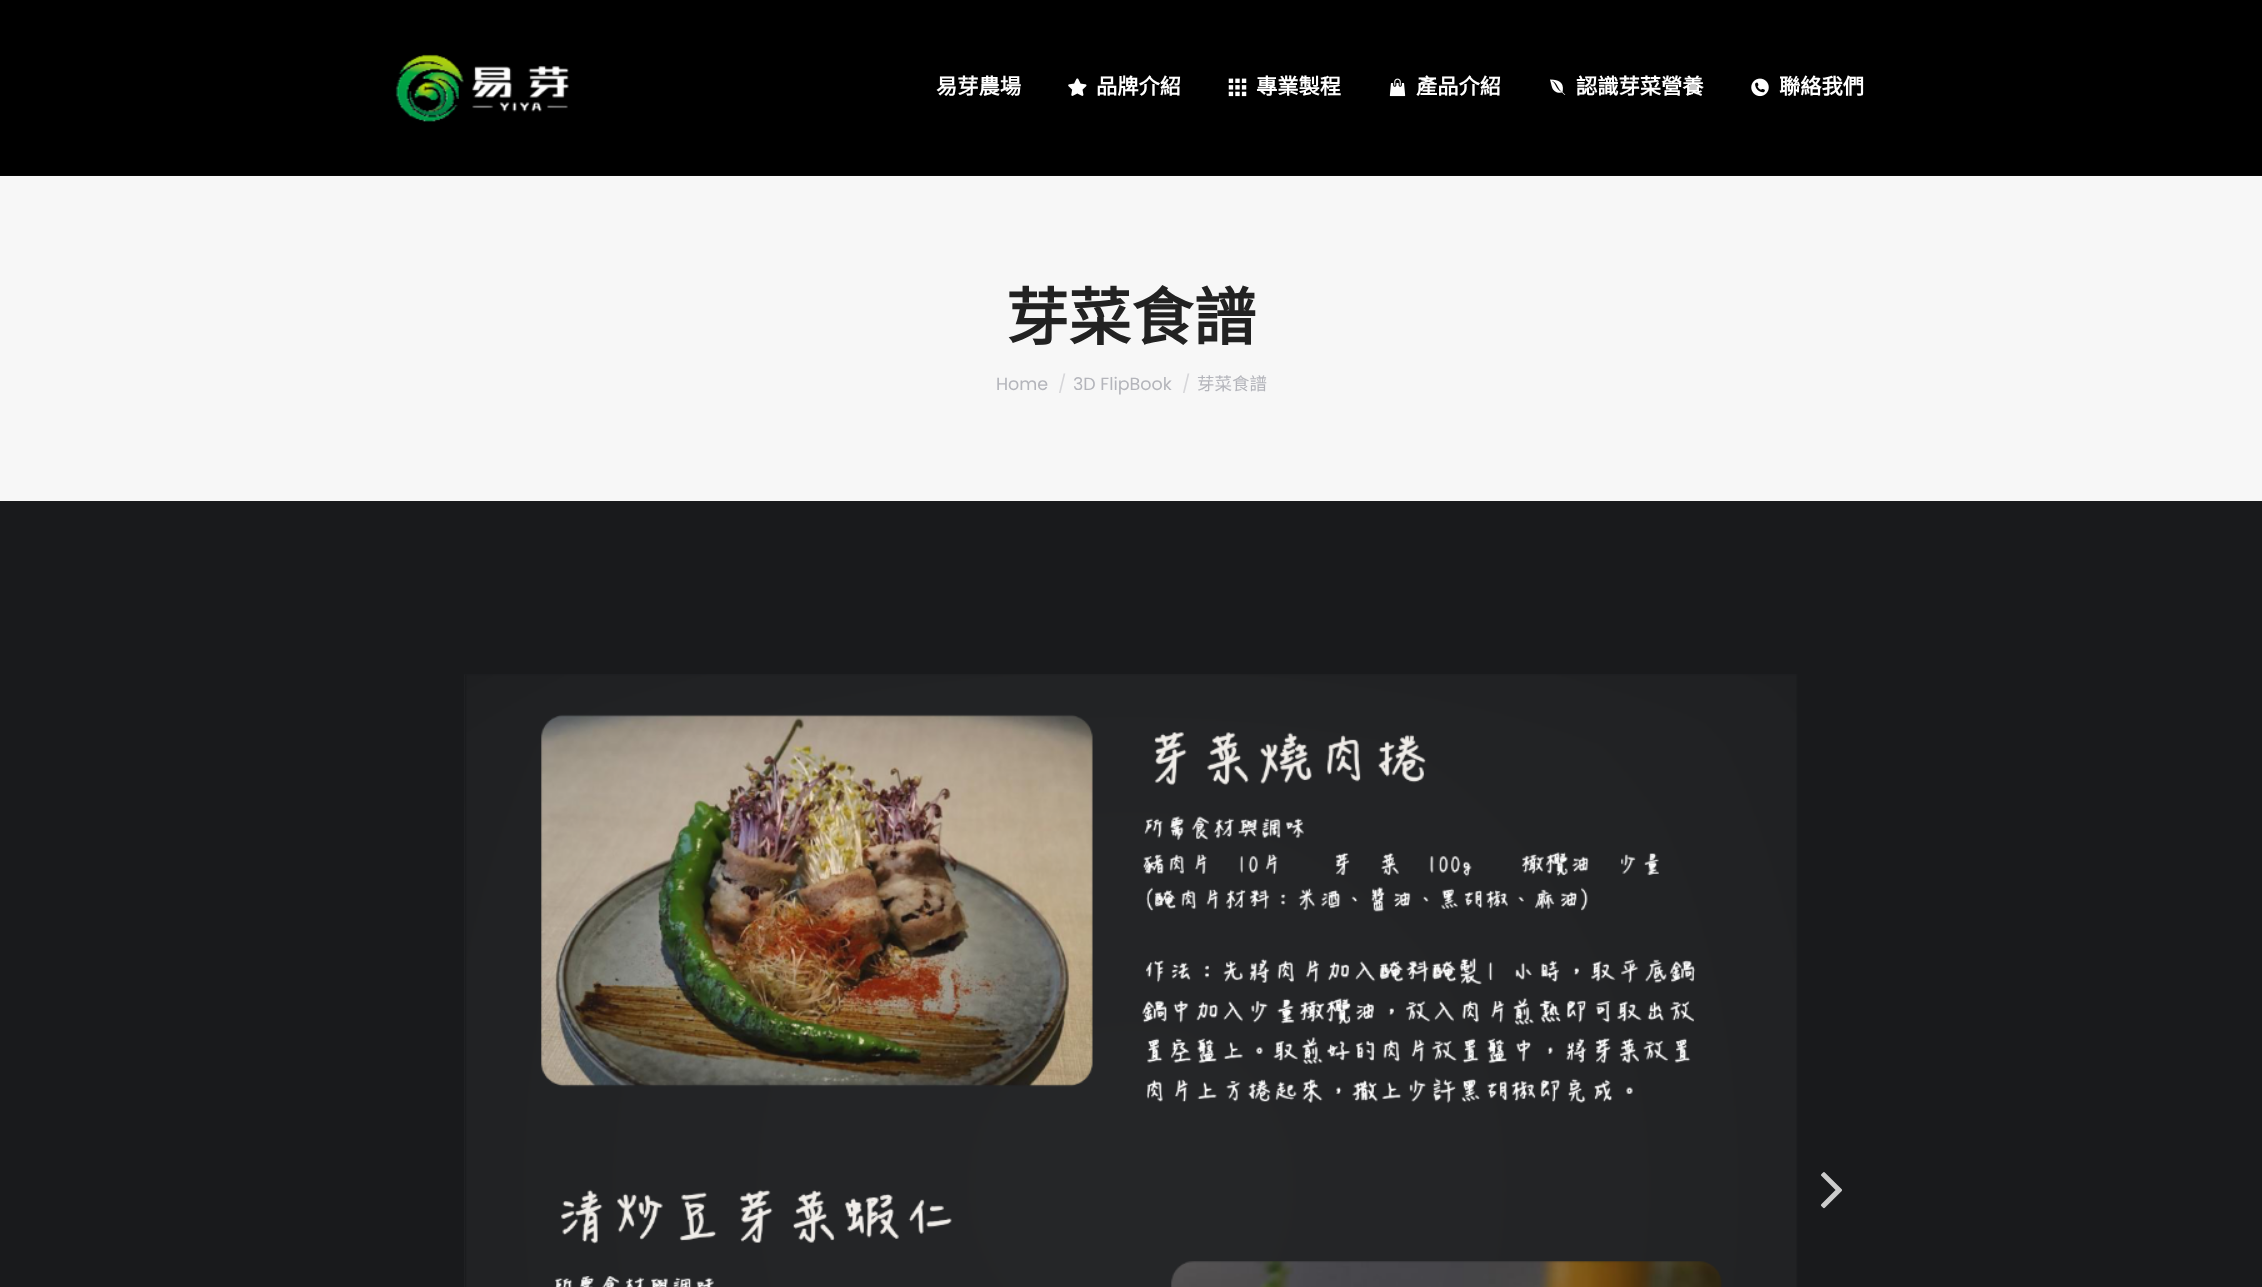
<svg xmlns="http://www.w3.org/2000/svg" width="2262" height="1287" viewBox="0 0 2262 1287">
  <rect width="100%" height="100%" fill="#191a1c"/>
  <path d="M0 0h2262v175H0z" fill="#000"/>
  <path d="M0 175h2262v1H0z" fill="#060606"/>
  <image x="395" y="54" width="174" height="68" href="img/1.png"/>
  <image x="1068" y="78" width="19" height="18" href="img/2.png"/>
  <image x="1228" y="78" width="19" height="19" href="img/3.png"/>
  <image x="1389" y="78" width="17" height="19" href="img/4.png"/>
  <image x="1550" y="79" width="16" height="16" href="img/5.png"/>
  <image x="1751" y="78" width="18" height="19" href="img/6.png"/>
  <path d="M0 176h2262v325H0z" fill="#f7f7f7"/>
  <image x="464" y="674" width="1378" height="613" href="img/7.png"/>
  <g font-family="Noto Sans CJK TC" font-size="21.25" font-weight="bold" fill="#fff">
    <text x="936" y="94">易芽農場</text>
    <text x="1096" y="94">品牌介紹</text>
    <text x="1256" y="94">專業製程</text>
    <text x="1416" y="94">產品介紹</text>
    <text x="1576" y="94">認識芽菜營養</text>
    <text x="1779" y="94">聯絡我們</text>
  </g>
  <text x="1006" y="340" font-family="Noto Sans CJK TC" font-size="62.5" font-weight="bold" fill="#222">芽菜食譜</text>
  <text x="996" y="390" font-family="Poppins" font-size="17.5" fill="#b4b5bb">Home</text>
  <text x="1058" y="390" font-family="Poppins" font-size="17.5" fill="#d6d6d9">/</text>
  <text x="1073" y="390" font-family="Poppins" font-size="17.5" fill="#b4b5bb">3D FlipBook</text>
  <text x="1182" y="390" font-family="Poppins" font-size="17.5" fill="#d6d6d9">/</text>
  <text x="1197" y="390" font-family="Noto Sans CJK TC" font-size="17.5" fill="#b4b5bb">芽菜食譜</text>
</svg>
